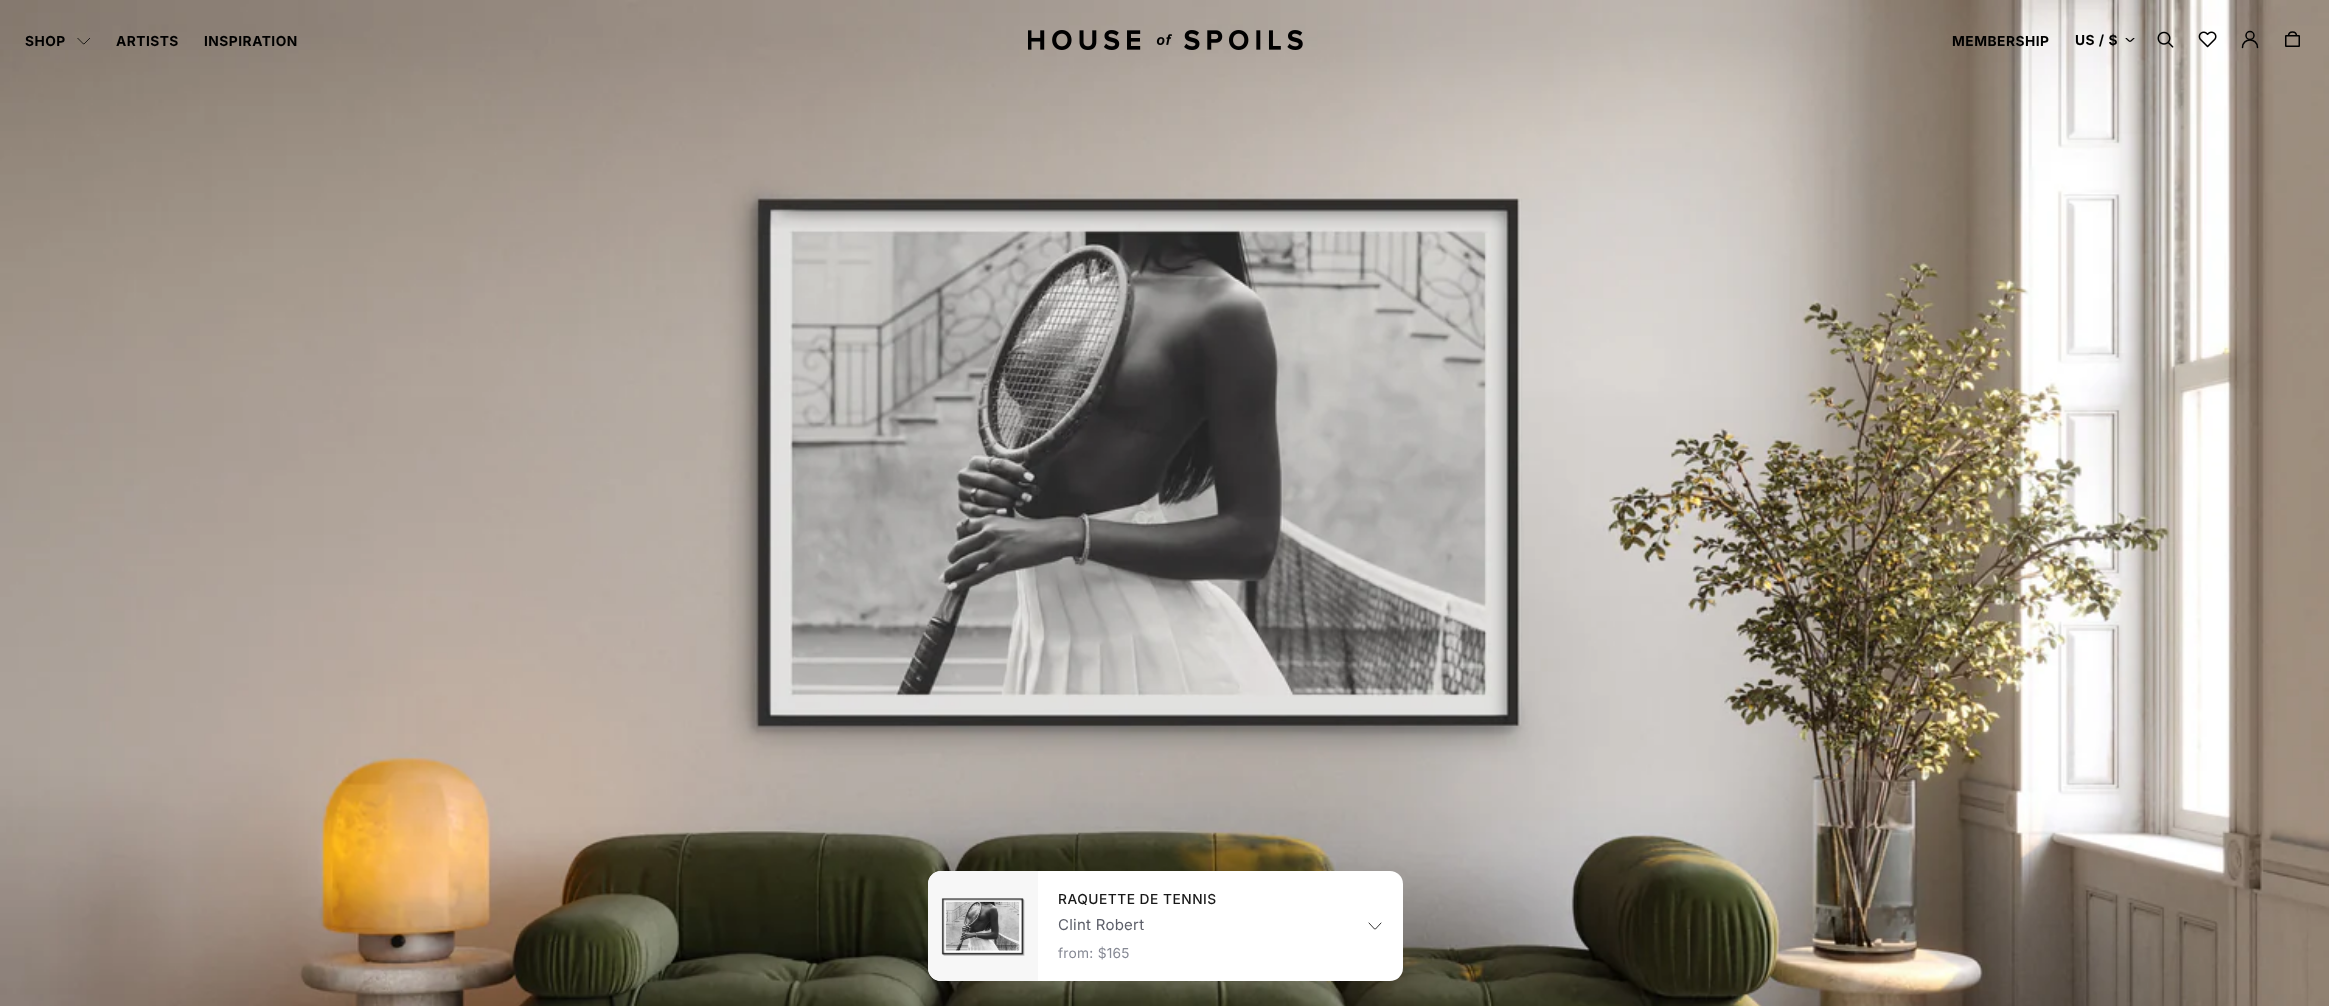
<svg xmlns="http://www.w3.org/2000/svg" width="2329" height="1006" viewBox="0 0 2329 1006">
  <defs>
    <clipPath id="clip1"><path d="M76 38h15v7H76z"/></clipPath>
    <clipPath id="clip2"><path d="M2125 38h10v5H2125z"/></clipPath>
  </defs>
  <rect width="100%" height="100%" fill="#fff"/>
  <image x="0" y="0" width="2329" height="1006" href="img/4.png"/>
  <g clip-path="url(#clip1)">
    <path d="M77.5 38L83.5 44H84L90 38" fill="none" stroke="#000" stroke-width="0.8" stroke-linecap="round"/>
  </g>
  <image x="1028" y="30" width="275" height="20" href="img/1.png"/>
  <g clip-path="url(#clip2)">
    <path d="M2126 38C2130.5 42.5 2129.5 42.5 2134 38" fill="none" stroke="#000" stroke-width="1.2" stroke-linecap="round"/>
  </g>
  <image x="2157" y="31" width="17" height="17" href="img/2.png"/>
  <image x="2198" y="31" width="19" height="17" href="img/3.png"/>
  <circle cx="2250" cy="35.5" r="4" fill="none" stroke="#000" stroke-width="1.5"/>
  <path d="M2242.5 47.5C2242.5 37.5 2257.5 37.5 2257.5 47.5" fill="none" stroke="#000" stroke-width="1.5" stroke-linecap="round"/>
  <rect x="2285.75" y="35.75" width="13.5" height="10.5" rx="0.25" fill="none" stroke="#000" stroke-width="1.5"/>
  <path d="M2288.5 36C2288.5 30.5 2296.5 30.5 2296.5 36" fill="none" stroke="#000" stroke-width="1.5"/>
  <rect x="928" y="871" width="475" height="110" rx="13" fill="#fff"/>
  <path d="M941 871H1038V981H941C934 981 928 975 928 968V884C928 877 934 871 941 871Z" fill="#f7f7f7"/>
  <image x="945" y="900" width="78" height="53" href="img/6.png"/>
  <image x="941" y="898" width="84" height="58" href="img/5.png"/>
  <path d="M1369 923L1374.5 929H1375.5L1381 923" fill="none" stroke="#000" stroke-width="0.8" stroke-linecap="round"/>
  <g font-family="Inter" font-size="13.75" font-weight="bold" letter-spacing="0.5" fill="#000">
    <text x="25" y="46">SHOP</text>
    <text x="116" y="46">ARTISTS</text>
    <text x="204" y="46">INSPIRATION</text>
    <text x="1952" y="46">MEMBERSHIP</text>
    <text x="2075" y="45">US / $</text>
  </g>
  <text x="1058" y="904" font-family="Inter" font-size="13.75" font-weight="500" letter-spacing="0.5" fill="#191919">RAQUETTE DE TENNIS</text>
  <text x="1058" y="930" font-family="Inter" font-size="15" letter-spacing="0.25" fill="#5d5f69">Clint Robert</text>
  <text x="1058" y="958" font-family="Inter" font-size="13.75" letter-spacing="0.25" fill="#868994">from: $165</text>
</svg>
